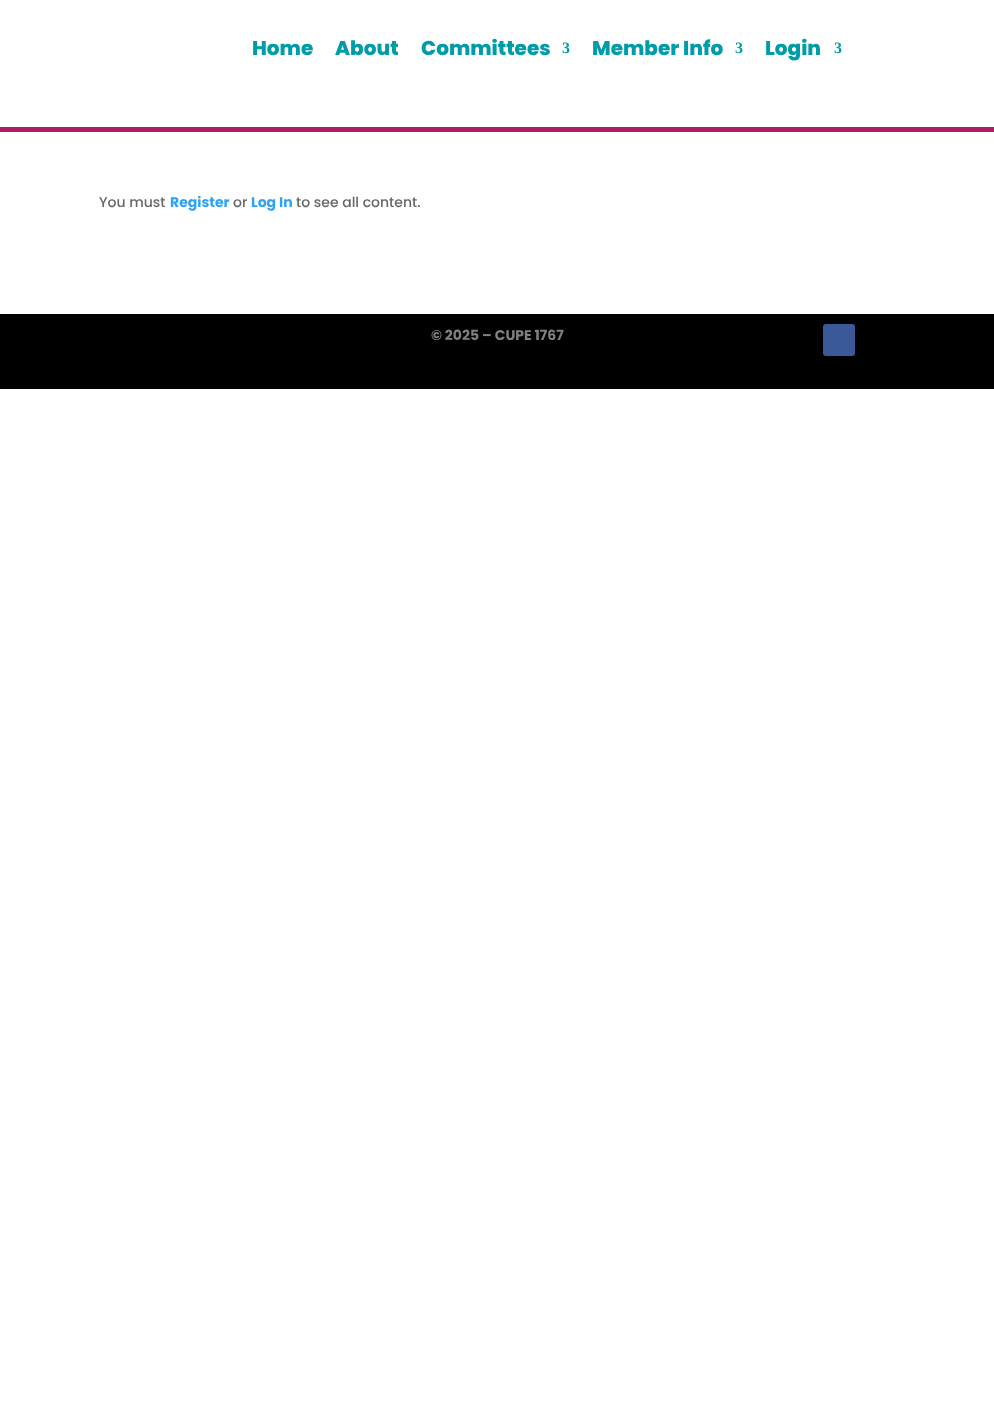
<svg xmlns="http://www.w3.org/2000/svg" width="994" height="1410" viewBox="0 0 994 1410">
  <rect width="100%" height="100%" fill="#fff"/>
  <path d="M0 127h994v5H0z" fill="#ae1e66"/>
  <path d="M0 314h994v75H0z" fill="#000"/>
  <rect x="823" y="324" width="32" height="32" rx="3" fill="#3b5998"/>
  <g font-family="Poppins" font-size="20" font-weight="800" fill="#009ca8">
    <text x="252" y="55">Home</text>
    <text x="335" y="55">About</text>
    <text x="421" y="55">Committees</text>
  </g>
  <text x="562" y="53" font-family="Liberation Serif" font-size="16" font-weight="bold" fill="#009ca8">3</text>
  <text x="592" y="55" font-family="Poppins" font-size="20" font-weight="800" fill="#009ca8">Member Info</text>
  <text x="735" y="53" font-family="Liberation Serif" font-size="16" font-weight="bold" fill="#009ca8">3</text>
  <text x="765" y="55" font-family="Poppins" font-size="20" font-weight="800" fill="#009ca8">Login</text>
  <text x="834" y="53" font-family="Liberation Serif" font-size="16" font-weight="bold" fill="#009ca8">3</text>
  <text x="99" y="207" font-family="Poppins" font-size="14" font-weight="500" fill="#666">You must</text>
  <text x="170" y="207" font-family="Poppins" font-size="14" font-weight="bold" fill="#2ea3f2">Register</text>
  <text x="233" y="207" font-family="Poppins" font-size="14" font-weight="500" fill="#666">or</text>
  <text x="251" y="207" font-family="Poppins" font-size="14" font-weight="bold" fill="#2ea3f2">Log In</text>
  <text x="296" y="207" font-family="Poppins" font-size="14" font-weight="500" fill="#666">to see all content.</text>
  <text x="431" y="340" font-family="Poppins" font-size="14" font-weight="bold" fill="#808080">© 2025 – CUPE 1767</text>
</svg>
